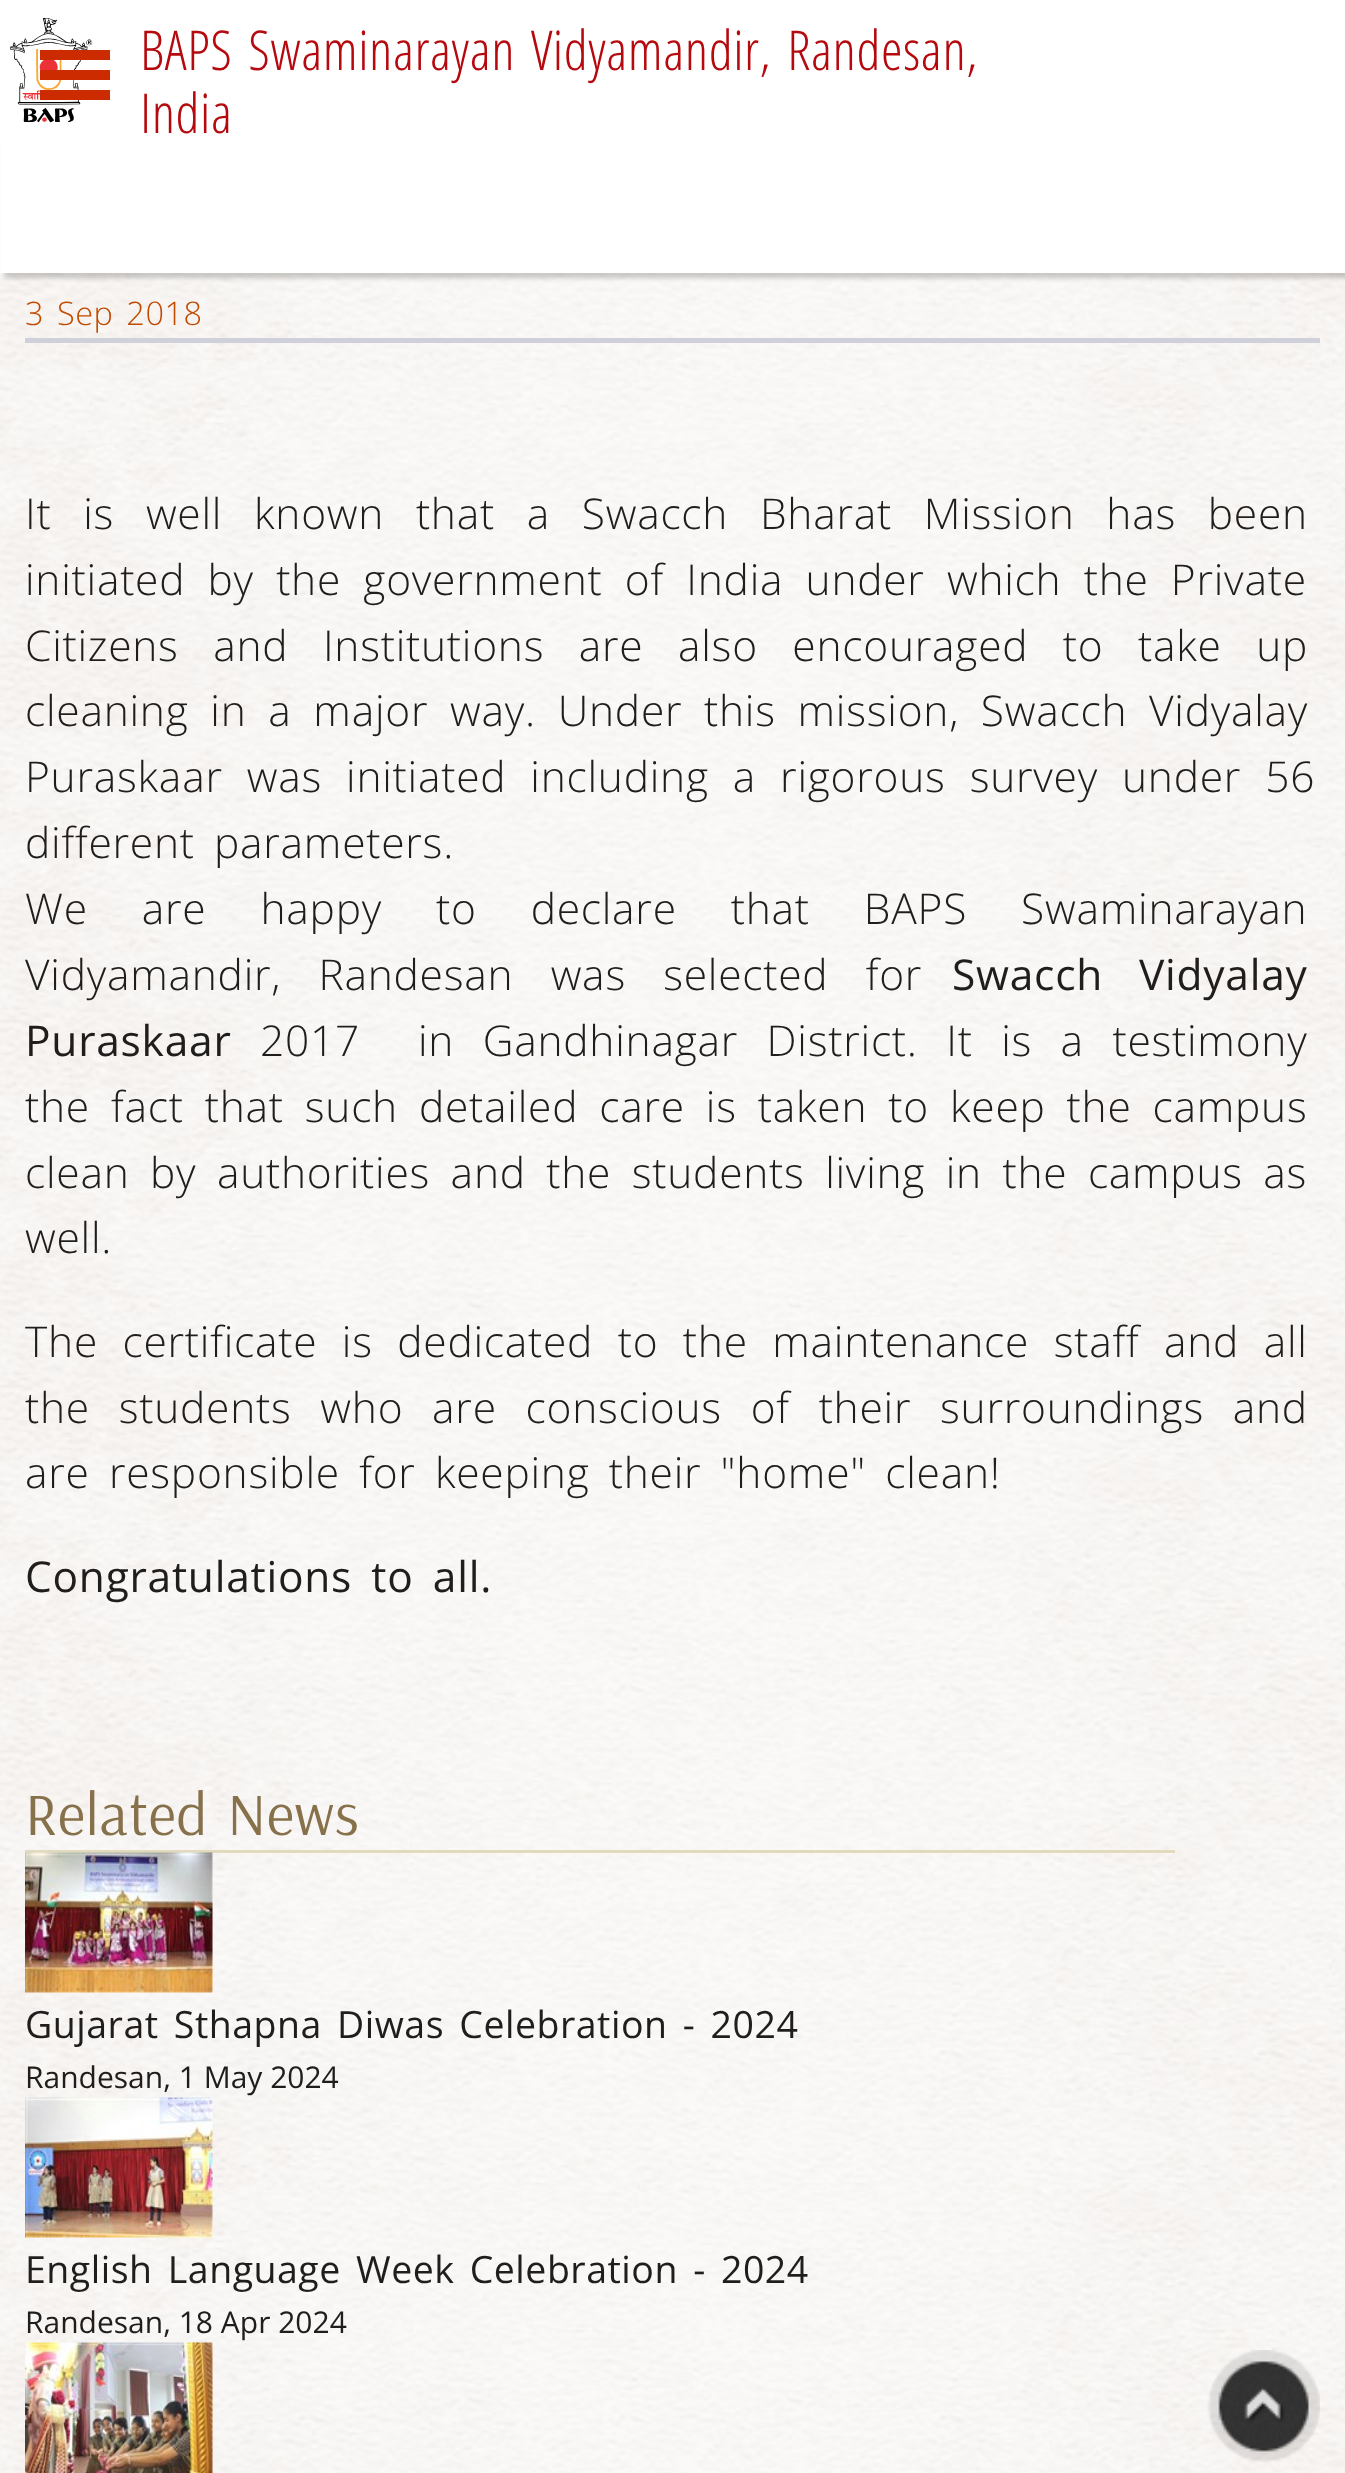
<svg xmlns="http://www.w3.org/2000/svg" width="1345" height="2473" viewBox="0 0 1345 2473">
  <rect width="100%" height="100%" fill="#fff"/>
  <image x="0" y="273" width="1345" height="2200" href="img/1.png"/>
  <image x="10" y="18" width="83" height="105" href="img/2.png"/>
  <path d="M40 50h70v10H40z" fill="#cc2b00"/>
  <path d="M40 70h70v10H40z" fill="#cc2b00"/>
  <path d="M40 90h70v10H40z" fill="#cc2b00"/>
  <path d="M5 140h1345v138H5z" fill="#0202021a" filter="blur(2.5px)"/>
  <path d="M5 140h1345v138H5z" fill="#0202021a" filter="blur(2.5px)"/>
  <path d="M1 136h1344v137H1z" fill="#fff"/>
  <path d="M25 338h1295v5H25z" fill="#d0d0da"/>
  <path d="M25 1850h1150v3H25z" fill="#e1dabc"/>
  <image x="25" y="1852" width="188" height="141" href="img/3.png"/>
  <image x="25" y="2097" width="188" height="141" href="img/4.png"/>
  <image x="25" y="2342" width="188" height="131" href="img/5.png"/>
  <image x="1207" y="2350" width="113" height="112" href="img/6.png"/>
  <g font-family="Open Sans Condensed" font-size="55" font-weight="300" letter-spacing="0.5" fill="#b5090e">
    <text x="140" y="70" word-spacing="5">BAPS Swaminarayan Vidyamandir, Randesan,</text>
    <text x="140" y="133">India</text>
  </g>
  <text x="25" y="325" word-spacing="4" font-family="Open Sans" font-size="32.5" font-weight="300" letter-spacing="0.5" fill="#bf4a00">3 Sep 2018</text>
  <g font-family="Open Sans" font-size="42.5" font-weight="300" letter-spacing="0.75" fill="#201d1d">
    <text x="25" y="529" word-spacing="20">It is well known that a Swacch Bharat Mission has been</text>
    <text x="25" y="595" word-spacing="10.5">initiated by the government of India under which the Private</text>
    <text x="25" y="661" word-spacing="22.75">Citizens and Institutions are also encouraged to take up</text>
    <text x="25" y="726" word-spacing="10">cleaning in a major way. Under this mission, Swacch Vidyalay</text>
    <text x="25" y="792" word-spacing="12.25">Puraskaar was initiated including a rigorous survey under 56</text>
    <text x="25" y="858" word-spacing="7.5">different parameters.</text>
    <text x="25" y="924" word-spacing="42.25">We are happy to declare that BAPS Swaminarayan</text>
    <text x="25" y="990" word-spacing="25.5">Vidyamandir, Randesan was selected for</text>
  </g>
  <g font-family="Open Sans" font-size="42.5" letter-spacing="0.75" fill="#201d1d">
    <text x="952" y="990" word-spacing="24">Swacch Vidyalay</text>
    <text x="25" y="1056">Puraskaar</text>
  </g>
  <g font-family="Open Sans" font-size="42.5" font-weight="300" letter-spacing="0.75" fill="#201d1d">
    <text x="260" y="1056">2017</text>
    <text x="418" y="1056" word-spacing="16.75">in Gandhinagar District. It is a testimony</text>
    <text x="25" y="1122" word-spacing="9.25">the fact that such detailed care is taken to keep the campus</text>
    <text x="25" y="1188" word-spacing="8.75">clean by authorities and the students living in the campus as</text>
    <text x="25" y="1253">well.</text>
    <text x="25" y="1357" word-spacing="12.75">The certificate is dedicated to the maintenance staff and all</text>
    <text x="25" y="1423" word-spacing="17">the students who are conscious of their surroundings and</text>
    <text x="25" y="1488" word-spacing="7.5">are responsible for keeping their "home" clean!</text>
  </g>
  <text x="25" y="1592" word-spacing="7.5" font-family="Open Sans" font-size="42.5" letter-spacing="0.75" fill="#201d1d">Congratulations to all.</text>
  <text x="25" y="1835" word-spacing="5" font-family="Arsenal" font-size="60" letter-spacing="0.5" fill="#87714b">Related News</text>
  <text x="25" y="2038" word-spacing="5" font-family="Open Sans" font-size="37.5" letter-spacing="0.5" fill="#201d1d">Gujarat Sthapna Diwas Celebration - 2024</text>
  <text x="25" y="2088" font-family="Open Sans" font-size="30" fill="#201d1d">Randesan, 1 May 2024</text>
  <text x="25" y="2283" word-spacing="5" font-family="Open Sans" font-size="37.5" letter-spacing="0.5" fill="#201d1d">English Language Week Celebration - 2024</text>
  <text x="25" y="2333" font-family="Open Sans" font-size="30" fill="#201d1d">Randesan, 18 Apr 2024</text>
</svg>
